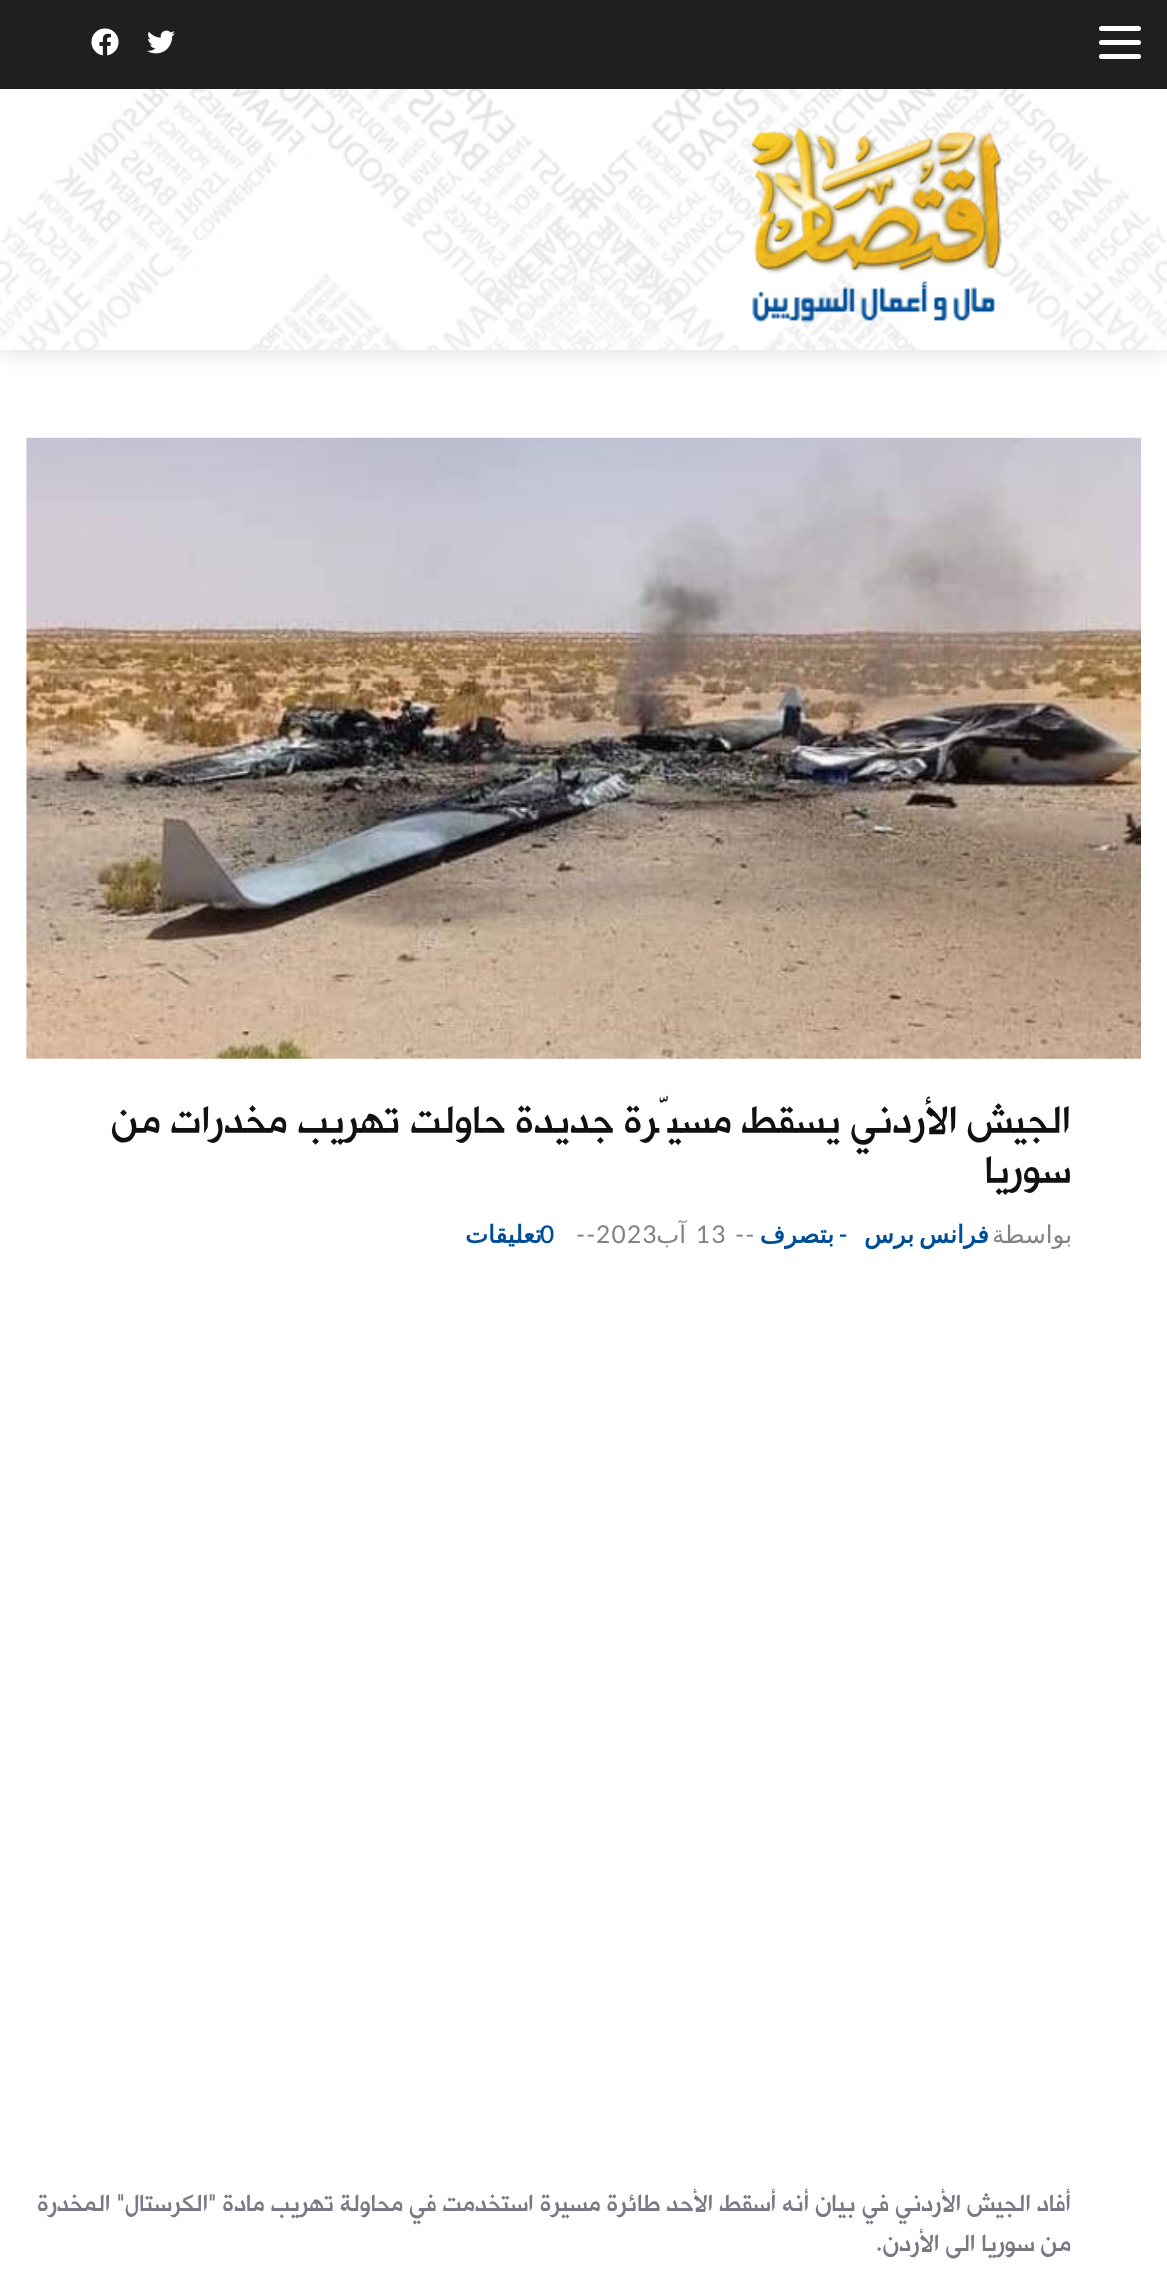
<svg xmlns="http://www.w3.org/2000/svg" width="1167" height="2285" viewBox="0 0 1167 2285">
  <rect width="100%" height="100%" fill="#fff"/>
  <path d="M0 88h1167v262H0z" fill="#00000026" filter="blur(13px)"/>
  <path d="M0 0h1167v89H0z" fill="#1f1f1f"/>
  <rect x="1099" y="26" width="42" height="5" rx="2.5" fill="#fff"/>
  <rect x="1099" y="40" width="42" height="5" rx="2.5" fill="#fff"/>
  <rect x="1099" y="54" width="42" height="5" rx="2.5" fill="#fff"/>
  <image x="147" y="30" width="28" height="24" href="img/1.png"/>
  <image x="91" y="28" width="28" height="28" href="img/2.png"/>
  <image x="0" y="89" width="1167" height="261" href="img/3.png"/>
  <image x="751" y="125" width="251" height="198" href="img/4.png"/>
  <image x="26" y="437" width="1115" height="622" href="img/5.png"/>
  <g font-family="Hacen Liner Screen" font-size="45.5" direction="rtl" fill="#111">
    <text x="1071" y="1136">الجيش الأردني يسقط مسيّرة جديدة حاولت تهريب مخدرات من</text>
    <text x="1071" y="1186">سوريا</text>
  </g>
  <text x="1072" y="1243" font-family="DejaVu Sans" font-size="24.5" letter-spacing="1.25" direction="rtl" fill="#828282">بواسطة</text>
  <text x="989" y="1243" word-spacing="-3" font-family="DejaVu Sans" font-size="24.5" font-weight="bold" letter-spacing="1.25" direction="rtl" fill="#004e96">فرانس برس</text>
  <text x="849" y="1243" font-family="Lato" font-size="24.5" font-weight="600" letter-spacing="1.25" direction="rtl" fill="#004e96">-</text>
  <text x="834" y="1243" font-family="DejaVu Sans" font-size="24.5" font-weight="bold" letter-spacing="1.25" direction="rtl" fill="#004e96">بتصرف</text>
  <g font-family="Lato" font-size="24.5" letter-spacing="1.25" fill="#828282">
    <text x="735" y="1243">--</text>
    <text x="696" y="1243">13</text>
    <text x="596" y="1243">2023</text>
  </g>
  <text x="686" y="1243" font-family="DejaVu Sans" font-size="24.5" letter-spacing="1.25" direction="rtl" fill="#828282">آب</text>
  <text x="576" y="1243" font-family="Lato" font-size="24.5" letter-spacing="1.25" fill="#828282">--</text>
  <text x="542" y="1243" font-family="DejaVu Sans" font-size="24.5" font-weight="bold" letter-spacing="1.25" direction="rtl" fill="#004e96">تعليقات</text>
  <text x="540" y="1243" font-family="Lato" font-size="24.5" font-weight="600" letter-spacing="1.25" fill="#004e96">0</text>
  <g font-family="Hacen Liner Screen" font-size="28" direction="rtl" fill="#797986">
    <text x="1071" y="2213">أفاد الجيش الأردني في بيان أنه أسقط الأحد طائرة مسيرة استخدمت في محاولة تهريب مادة "الكرستال" المخدرة</text>
    <text x="1071" y="2253">من سوريا الى الأردن.</text>
  </g>
</svg>
